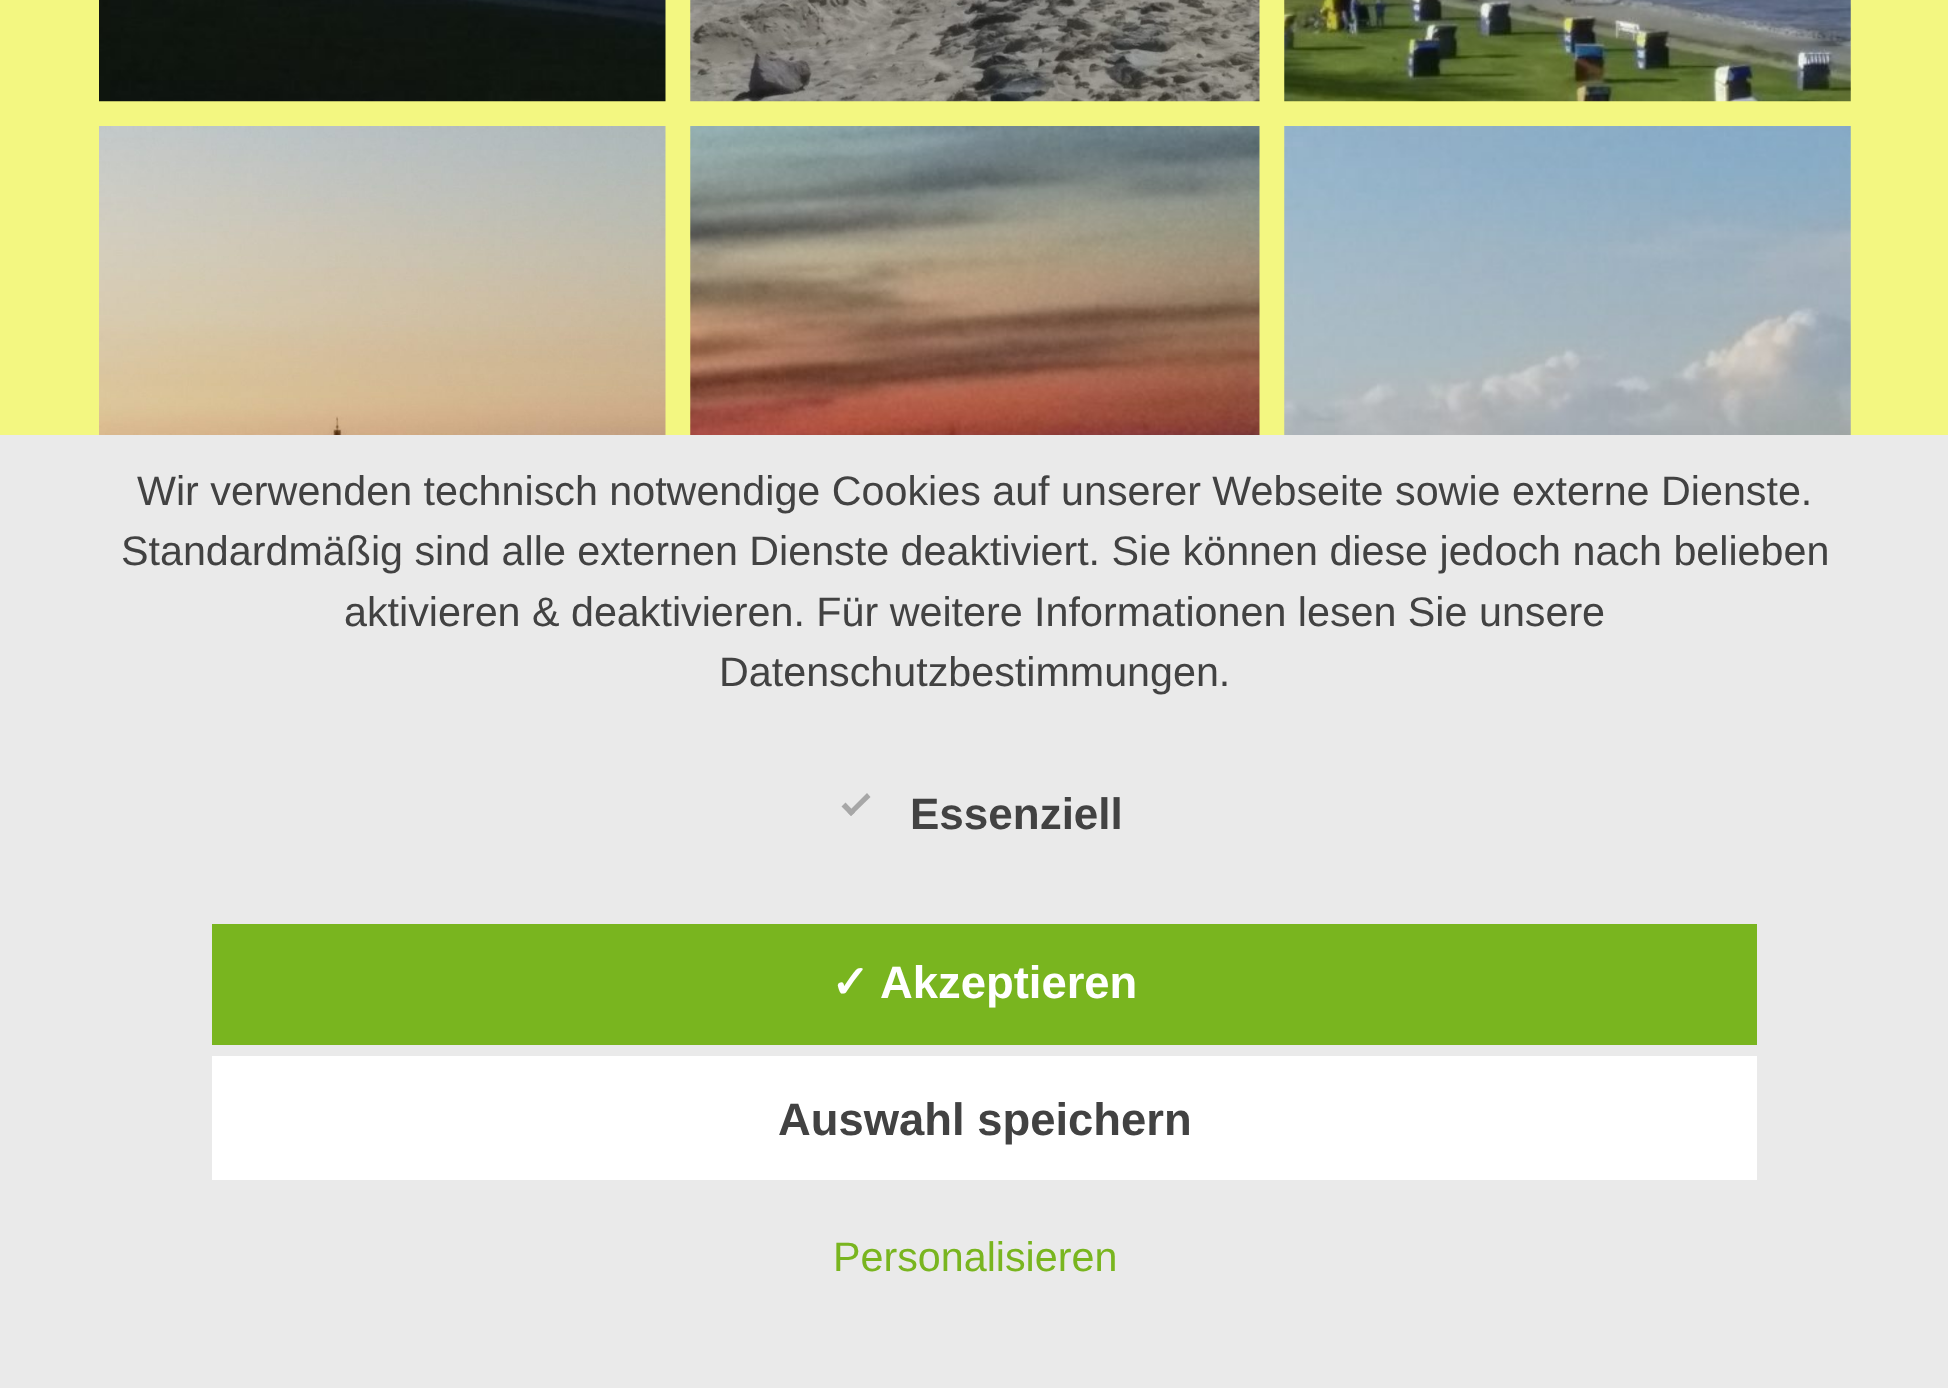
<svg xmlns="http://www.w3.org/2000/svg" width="1948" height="1388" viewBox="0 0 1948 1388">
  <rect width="100%" height="100%" fill="#f3f781"/>
  <image x="99" y="0" width="567" height="102" href="img/1.png"/>
  <image x="690" y="0" width="570" height="102" href="img/2.png"/>
  <image x="1284" y="0" width="567" height="102" href="img/3.png"/>
  <image x="99" y="126" width="567" height="309" href="img/4.png"/>
  <image x="690" y="126" width="570" height="309" href="img/5.png"/>
  <image x="1284" y="126" width="567" height="309" href="img/6.png"/>
  <path d="M0 435h1948v953H0z" fill="#eaeaea"/>
  <path d="M867 793L870.5 797L851 816L847.5 812.5Z" fill="#a7a7a7"/>
  <path d="M845.5 802.5L855 812.5L851 816L841.5 806.5Z" fill="#a7a7a7"/>
  <path d="M212 924h1545v121H212z" fill="#79b51f"/>
  <path d="M212 1056h1545v124H212z" fill="#fff"/>
  <g font-family="Liberation Sans" font-size="41.25" fill="#424242">
    <text x="137" y="505">Wir verwenden technisch notwendige Cookies auf unserer Webseite sowie externe Dienste.</text>
    <text x="121" y="565">Standardmäßig sind alle externen Dienste deaktiviert. Sie können diese jedoch nach belieben</text>
    <text x="344" y="626">aktivieren &amp; deaktivieren. Für weitere Informationen lesen Sie unsere</text>
    <text x="719" y="686">Datenschutzbestimmungen.</text>
  </g>
  <text x="910" y="829" font-family="Liberation Sans" font-size="44" font-weight="bold" fill="#424242">Essenziell</text>
  <text x="831" y="998" font-family="DejaVu Sans" font-size="45.4" font-weight="bold" fill="#fff">✓</text>
  <text x="880" y="998" font-family="Liberation Sans" font-size="45.4" font-weight="bold" fill="#fff">Akzeptieren</text>
  <text x="778" y="1135" font-family="Liberation Sans" font-size="45.4" font-weight="bold" fill="#424242">Auswahl speichern</text>
  <text x="833" y="1271" font-family="Liberation Sans" font-size="41.25" fill="#79b51f">Personalisieren</text>
</svg>
